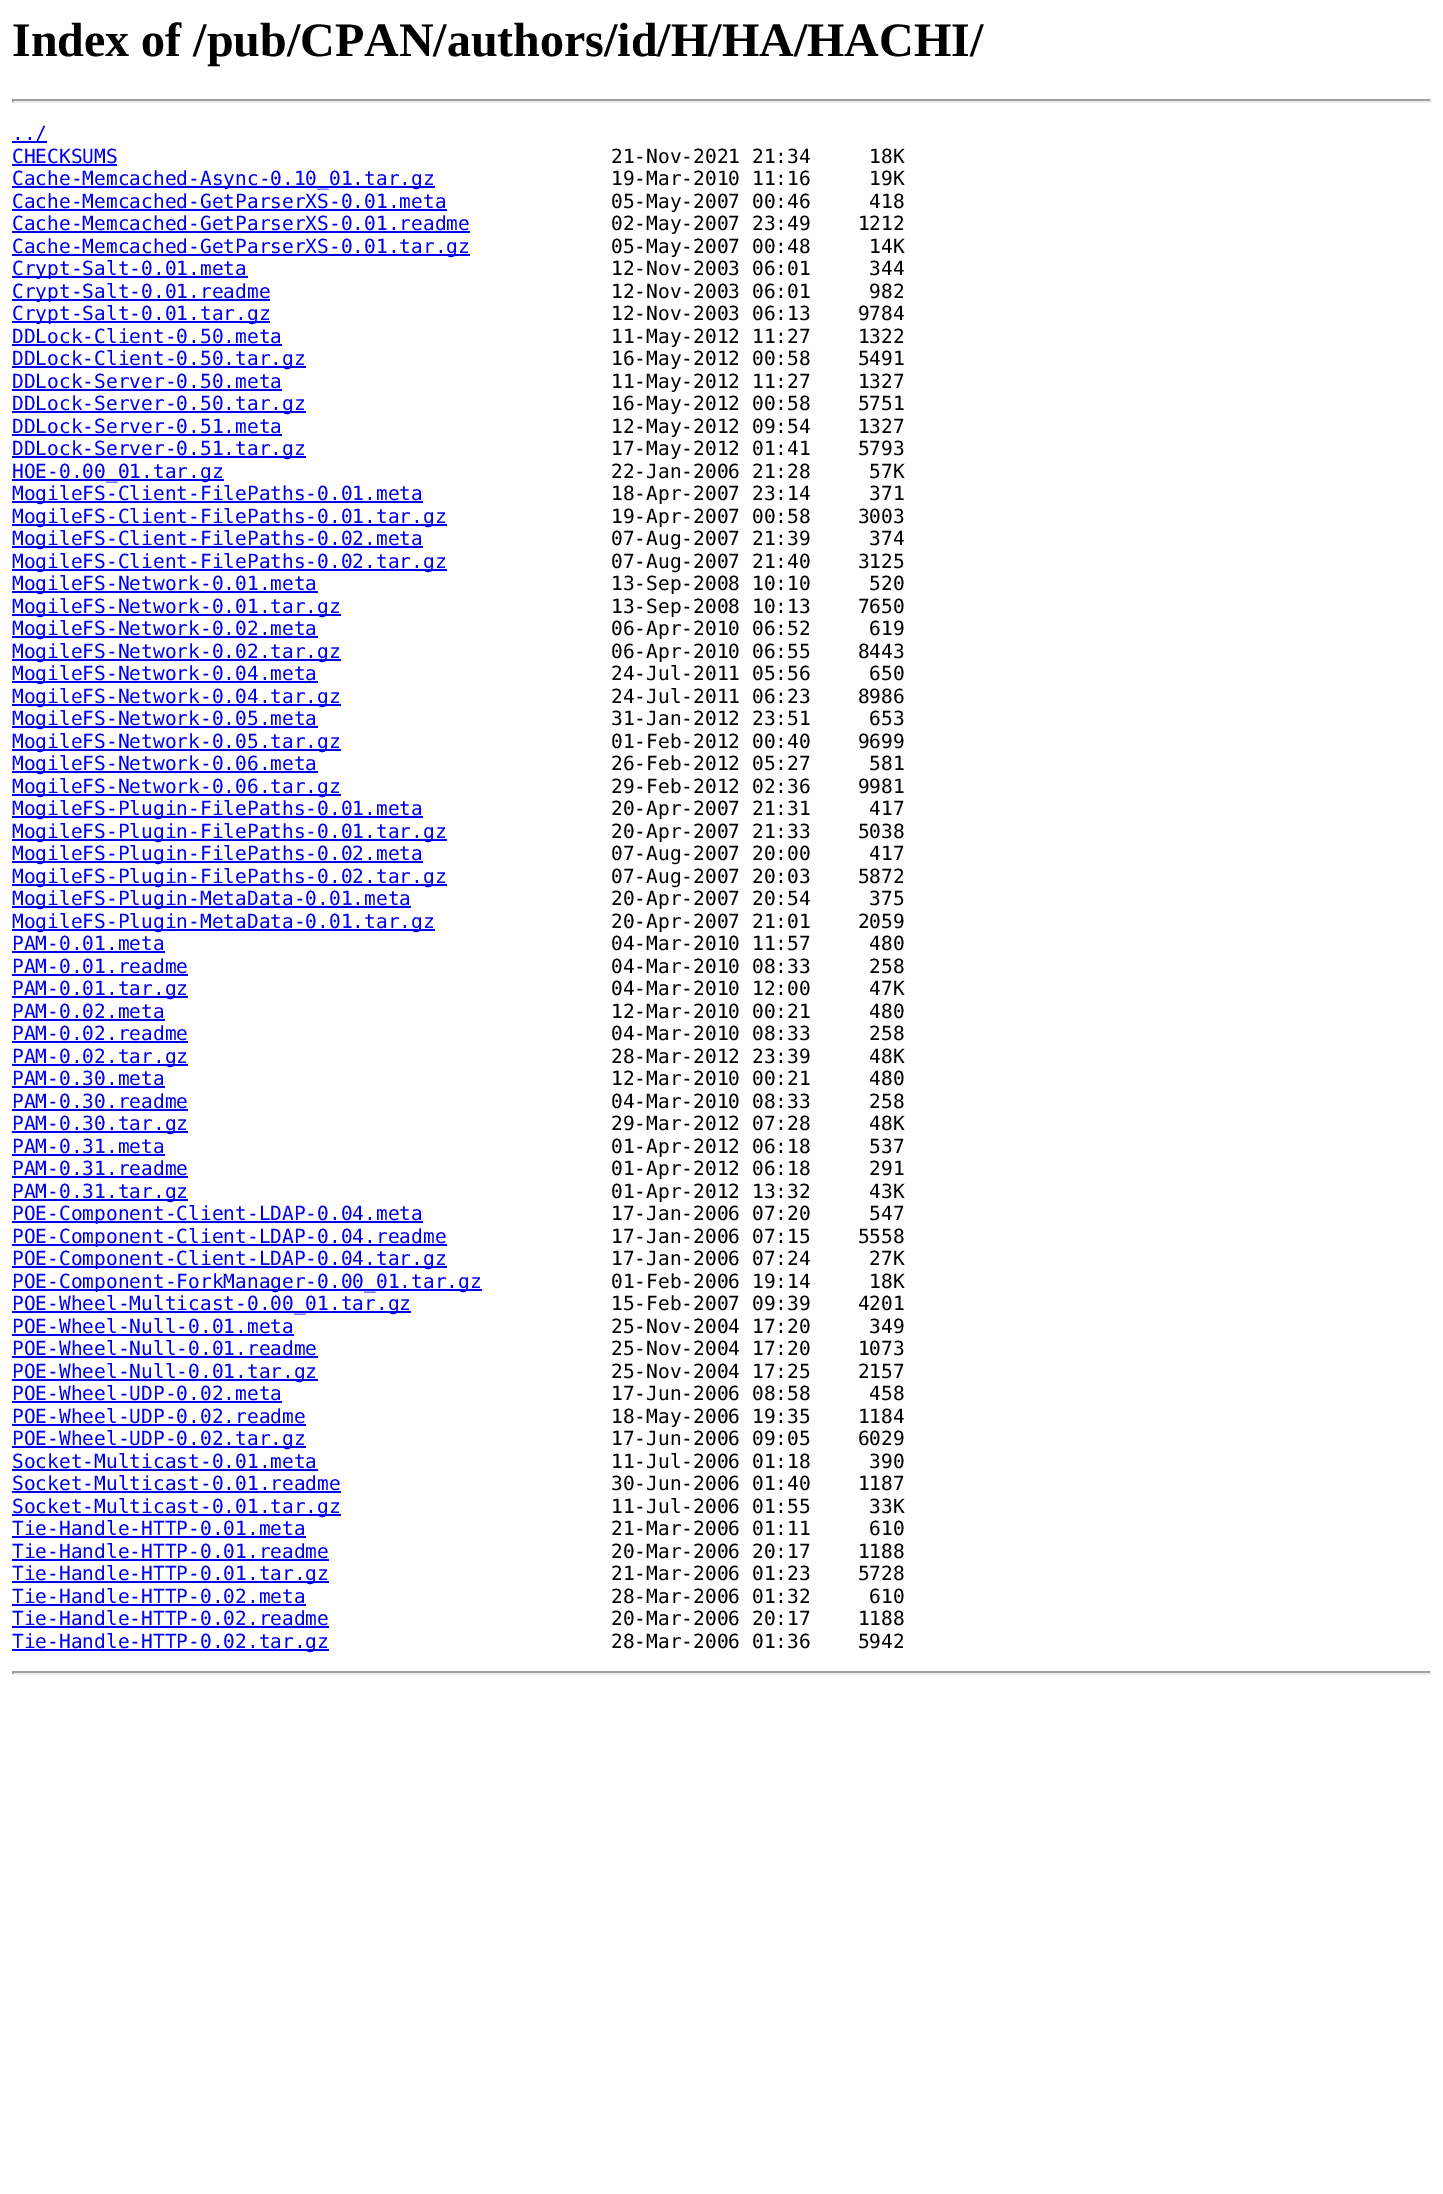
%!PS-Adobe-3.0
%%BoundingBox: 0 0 1443 2194
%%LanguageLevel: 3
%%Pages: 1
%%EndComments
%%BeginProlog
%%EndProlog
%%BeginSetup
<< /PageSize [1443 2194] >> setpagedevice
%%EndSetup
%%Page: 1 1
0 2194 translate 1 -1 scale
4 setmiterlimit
1 setgray
0 0 1443 2194 rectfill
0.624 setgray
12 99 1419 2 rectfill
0.933 setgray
1430 99 2 3 rectfill
12 101 1419 2 rectfill
0.624 setgray
12 99 2 3 rectfill
0 0 0.933 setrgbcolor
12 141 35 2 rectfill
12 164 105 2 rectfill
12 186 423 2 rectfill
12 209 435 2 rectfill
12 231 458 2 rectfill
12 254 458 2 rectfill
12 276 236 2 rectfill
12 299 258 2 rectfill
12 321 258 2 rectfill
12 344 270 2 rectfill
12 366 294 2 rectfill
12 389 270 2 rectfill
12 411 294 2 rectfill
12 434 270 2 rectfill
12 456 294 2 rectfill
12 479 212 2 rectfill
12 501 411 2 rectfill
12 524 435 2 rectfill
12 546 411 2 rectfill
12 569 435 2 rectfill
12 591 306 2 rectfill
12 614 329 2 rectfill
12 636 306 2 rectfill
12 659 329 2 rectfill
12 681 306 2 rectfill
12 704 329 2 rectfill
12 726 306 2 rectfill
12 749 329 2 rectfill
12 771 306 2 rectfill
12 794 329 2 rectfill
12 816 411 2 rectfill
12 839 435 2 rectfill
12 861 411 2 rectfill
12 884 435 2 rectfill
12 906 399 2 rectfill
12 929 423 2 rectfill
12 951 153 2 rectfill
12 974 176 2 rectfill
12 996 176 2 rectfill
12 1019 153 2 rectfill
12 1041 176 2 rectfill
12 1064 176 2 rectfill
12 1086 153 2 rectfill
12 1109 176 2 rectfill
12 1131 176 2 rectfill
12 1154 153 2 rectfill
12 1176 176 2 rectfill
12 1199 176 2 rectfill
12 1221 411 2 rectfill
12 1244 435 2 rectfill
12 1266 435 2 rectfill
12 1289 470 2 rectfill
12 1311 399 2 rectfill
12 1334 282 2 rectfill
12 1356 306 2 rectfill
12 1379 306 2 rectfill
12 1401 270 2 rectfill
12 1424 294 2 rectfill
12 1446 294 2 rectfill
12 1469 306 2 rectfill
12 1491 329 2 rectfill
12 1514 329 2 rectfill
12 1536 294 2 rectfill
12 1559 317 2 rectfill
12 1581 317 2 rectfill
12 1604 294 2 rectfill
12 1626 317 2 rectfill
12 1649 317 2 rectfill
0.624 setgray
12 1671 1419 2 rectfill
0.933 setgray
1430 1671 2 3 rectfill
12 1673 1419 2 rectfill
0.624 setgray
12 1671 2 3 rectfill
/LiberationSerif-Bold [48 0 0 -48 0 0] selectfont
0 setgray
12 56 moveto (Index of /pub/CPAN/authors/id/H/HA/HACHI/) show
/DejaVuSansMono-Regular [19.5 0 0 -19.5 0 0] selectfont
0 0 0.933 setrgbcolor
12 140 moveto (../) show
12 163 moveto (CHECKSUMS) show
0 setgray
611 163 moveto (21-Nov-2021 21:34     18K) show
0 0 0.933 setrgbcolor
12 185 moveto (Cache-Memcached-Async-0.10_01.tar.gz) show
0 setgray
611 185 moveto (19-Mar-2010 11:16     19K) show
0 0 0.933 setrgbcolor
12 208 moveto (Cache-Memcached-GetParserXS-0.01.meta) show
0 setgray
611 208 moveto (05-May-2007 00:46     418) show
0 0 0.933 setrgbcolor
12 230 moveto (Cache-Memcached-GetParserXS-0.01.readme) show
0 setgray
611 230 moveto (02-May-2007 23:49    1212) show
0 0 0.933 setrgbcolor
12 253 moveto (Cache-Memcached-GetParserXS-0.01.tar.gz) show
0 setgray
611 253 moveto (05-May-2007 00:48     14K) show
0 0 0.933 setrgbcolor
12 275 moveto (Crypt-Salt-0.01.meta) show
0 setgray
611 275 moveto (12-Nov-2003 06:01     344) show
0 0 0.933 setrgbcolor
12 298 moveto (Crypt-Salt-0.01.readme) show
0 setgray
611 298 moveto (12-Nov-2003 06:01     982) show
0 0 0.933 setrgbcolor
12 320 moveto (Crypt-Salt-0.01.tar.gz) show
0 setgray
611 320 moveto (12-Nov-2003 06:13    9784) show
0 0 0.933 setrgbcolor
12 343 moveto (DDLock-Client-0.50.meta) show
0 setgray
611 343 moveto (11-May-2012 11:27    1322) show
0 0 0.933 setrgbcolor
12 365 moveto (DDLock-Client-0.50.tar.gz) show
0 setgray
611 365 moveto (16-May-2012 00:58    5491) show
0 0 0.933 setrgbcolor
12 388 moveto (DDLock-Server-0.50.meta) show
0 setgray
611 388 moveto (11-May-2012 11:27    1327) show
0 0 0.933 setrgbcolor
12 410 moveto (DDLock-Server-0.50.tar.gz) show
0 setgray
611 410 moveto (16-May-2012 00:58    5751) show
0 0 0.933 setrgbcolor
12 433 moveto (DDLock-Server-0.51.meta) show
0 setgray
611 433 moveto (12-May-2012 09:54    1327) show
0 0 0.933 setrgbcolor
12 455 moveto (DDLock-Server-0.51.tar.gz) show
0 setgray
611 455 moveto (17-May-2012 01:41    5793) show
0 0 0.933 setrgbcolor
12 478 moveto (HOE-0.00_01.tar.gz) show
0 setgray
611 478 moveto (22-Jan-2006 21:28     57K) show
0 0 0.933 setrgbcolor
12 500 moveto (MogileFS-Client-FilePaths-0.01.meta) show
0 setgray
611 500 moveto (18-Apr-2007 23:14     371) show
0 0 0.933 setrgbcolor
12 523 moveto (MogileFS-Client-FilePaths-0.01.tar.gz) show
0 setgray
611 523 moveto (19-Apr-2007 00:58    3003) show
0 0 0.933 setrgbcolor
12 545 moveto (MogileFS-Client-FilePaths-0.02.meta) show
0 setgray
611 545 moveto (07-Aug-2007 21:39     374) show
0 0 0.933 setrgbcolor
12 568 moveto (MogileFS-Client-FilePaths-0.02.tar.gz) show
0 setgray
611 568 moveto (07-Aug-2007 21:40    3125) show
0 0 0.933 setrgbcolor
12 590 moveto (MogileFS-Network-0.01.meta) show
0 setgray
611 590 moveto (13-Sep-2008 10:10     520) show
0 0 0.933 setrgbcolor
12 613 moveto (MogileFS-Network-0.01.tar.gz) show
0 setgray
611 613 moveto (13-Sep-2008 10:13    7650) show
0 0 0.933 setrgbcolor
12 635 moveto (MogileFS-Network-0.02.meta) show
0 setgray
611 635 moveto (06-Apr-2010 06:52     619) show
0 0 0.933 setrgbcolor
12 658 moveto (MogileFS-Network-0.02.tar.gz) show
0 setgray
611 658 moveto (06-Apr-2010 06:55    8443) show
0 0 0.933 setrgbcolor
12 680 moveto (MogileFS-Network-0.04.meta) show
0 setgray
611 680 moveto (24-Jul-2011 05:56     650) show
0 0 0.933 setrgbcolor
12 703 moveto (MogileFS-Network-0.04.tar.gz) show
0 setgray
611 703 moveto (24-Jul-2011 06:23    8986) show
0 0 0.933 setrgbcolor
12 725 moveto (MogileFS-Network-0.05.meta) show
0 setgray
611 725 moveto (31-Jan-2012 23:51     653) show
0 0 0.933 setrgbcolor
12 748 moveto (MogileFS-Network-0.05.tar.gz) show
0 setgray
611 748 moveto (01-Feb-2012 00:40    9699) show
0 0 0.933 setrgbcolor
12 770 moveto (MogileFS-Network-0.06.meta) show
0 setgray
611 770 moveto (26-Feb-2012 05:27     581) show
0 0 0.933 setrgbcolor
12 793 moveto (MogileFS-Network-0.06.tar.gz) show
0 setgray
611 793 moveto (29-Feb-2012 02:36    9981) show
0 0 0.933 setrgbcolor
12 815 moveto (MogileFS-Plugin-FilePaths-0.01.meta) show
0 setgray
611 815 moveto (20-Apr-2007 21:31     417) show
0 0 0.933 setrgbcolor
12 838 moveto (MogileFS-Plugin-FilePaths-0.01.tar.gz) show
0 setgray
611 838 moveto (20-Apr-2007 21:33    5038) show
0 0 0.933 setrgbcolor
12 860 moveto (MogileFS-Plugin-FilePaths-0.02.meta) show
0 setgray
611 860 moveto (07-Aug-2007 20:00     417) show
0 0 0.933 setrgbcolor
12 883 moveto (MogileFS-Plugin-FilePaths-0.02.tar.gz) show
0 setgray
611 883 moveto (07-Aug-2007 20:03    5872) show
0 0 0.933 setrgbcolor
12 905 moveto (MogileFS-Plugin-MetaData-0.01.meta) show
0 setgray
611 905 moveto (20-Apr-2007 20:54     375) show
0 0 0.933 setrgbcolor
12 928 moveto (MogileFS-Plugin-MetaData-0.01.tar.gz) show
0 setgray
611 928 moveto (20-Apr-2007 21:01    2059) show
0 0 0.933 setrgbcolor
12 950 moveto (PAM-0.01.meta) show
0 setgray
611 950 moveto (04-Mar-2010 11:57     480) show
0 0 0.933 setrgbcolor
12 973 moveto (PAM-0.01.readme) show
0 setgray
611 973 moveto (04-Mar-2010 08:33     258) show
0 0 0.933 setrgbcolor
12 995 moveto (PAM-0.01.tar.gz) show
0 setgray
611 995 moveto (04-Mar-2010 12:00     47K) show
0 0 0.933 setrgbcolor
12 1018 moveto (PAM-0.02.meta) show
0 setgray
611 1018 moveto (12-Mar-2010 00:21     480) show
0 0 0.933 setrgbcolor
12 1040 moveto (PAM-0.02.readme) show
0 setgray
611 1040 moveto (04-Mar-2010 08:33     258) show
0 0 0.933 setrgbcolor
12 1063 moveto (PAM-0.02.tar.gz) show
0 setgray
611 1063 moveto (28-Mar-2012 23:39     48K) show
0 0 0.933 setrgbcolor
12 1085 moveto (PAM-0.30.meta) show
0 setgray
611 1085 moveto (12-Mar-2010 00:21     480) show
0 0 0.933 setrgbcolor
12 1108 moveto (PAM-0.30.readme) show
0 setgray
611 1108 moveto (04-Mar-2010 08:33     258) show
0 0 0.933 setrgbcolor
12 1130 moveto (PAM-0.30.tar.gz) show
0 setgray
611 1130 moveto (29-Mar-2012 07:28     48K) show
0 0 0.933 setrgbcolor
12 1153 moveto (PAM-0.31.meta) show
0 setgray
611 1153 moveto (01-Apr-2012 06:18     537) show
0 0 0.933 setrgbcolor
12 1175 moveto (PAM-0.31.readme) show
0 setgray
611 1175 moveto (01-Apr-2012 06:18     291) show
0 0 0.933 setrgbcolor
12 1198 moveto (PAM-0.31.tar.gz) show
0 setgray
611 1198 moveto (01-Apr-2012 13:32     43K) show
0 0 0.933 setrgbcolor
12 1220 moveto (POE-Component-Client-LDAP-0.04.meta) show
0 setgray
611 1220 moveto (17-Jan-2006 07:20     547) show
0 0 0.933 setrgbcolor
12 1243 moveto (POE-Component-Client-LDAP-0.04.readme) show
0 setgray
611 1243 moveto (17-Jan-2006 07:15    5558) show
0 0 0.933 setrgbcolor
12 1265 moveto (POE-Component-Client-LDAP-0.04.tar.gz) show
0 setgray
611 1265 moveto (17-Jan-2006 07:24     27K) show
0 0 0.933 setrgbcolor
12 1288 moveto (POE-Component-ForkManager-0.00_01.tar.gz) show
0 setgray
611 1288 moveto (01-Feb-2006 19:14     18K) show
0 0 0.933 setrgbcolor
12 1310 moveto (POE-Wheel-Multicast-0.00_01.tar.gz) show
0 setgray
611 1310 moveto (15-Feb-2007 09:39    4201) show
0 0 0.933 setrgbcolor
12 1333 moveto (POE-Wheel-Null-0.01.meta) show
0 setgray
611 1333 moveto (25-Nov-2004 17:20     349) show
0 0 0.933 setrgbcolor
12 1355 moveto (POE-Wheel-Null-0.01.readme) show
0 setgray
611 1355 moveto (25-Nov-2004 17:20    1073) show
0 0 0.933 setrgbcolor
12 1378 moveto (POE-Wheel-Null-0.01.tar.gz) show
0 setgray
611 1378 moveto (25-Nov-2004 17:25    2157) show
0 0 0.933 setrgbcolor
12 1400 moveto (POE-Wheel-UDP-0.02.meta) show
0 setgray
611 1400 moveto (17-Jun-2006 08:58     458) show
0 0 0.933 setrgbcolor
12 1423 moveto (POE-Wheel-UDP-0.02.readme) show
0 setgray
611 1423 moveto (18-May-2006 19:35    1184) show
0 0 0.933 setrgbcolor
12 1445 moveto (POE-Wheel-UDP-0.02.tar.gz) show
0 setgray
611 1445 moveto (17-Jun-2006 09:05    6029) show
0 0 0.933 setrgbcolor
12 1468 moveto (Socket-Multicast-0.01.meta) show
0 setgray
611 1468 moveto (11-Jul-2006 01:18     390) show
0 0 0.933 setrgbcolor
12 1490 moveto (Socket-Multicast-0.01.readme) show
0 setgray
611 1490 moveto (30-Jun-2006 01:40    1187) show
0 0 0.933 setrgbcolor
12 1513 moveto (Socket-Multicast-0.01.tar.gz) show
0 setgray
611 1513 moveto (11-Jul-2006 01:55     33K) show
0 0 0.933 setrgbcolor
12 1535 moveto (Tie-Handle-HTTP-0.01.meta) show
0 setgray
611 1535 moveto (21-Mar-2006 01:11     610) show
0 0 0.933 setrgbcolor
12 1558 moveto (Tie-Handle-HTTP-0.01.readme) show
0 setgray
611 1558 moveto (20-Mar-2006 20:17    1188) show
0 0 0.933 setrgbcolor
12 1580 moveto (Tie-Handle-HTTP-0.01.tar.gz) show
0 setgray
611 1580 moveto (21-Mar-2006 01:23    5728) show
0 0 0.933 setrgbcolor
12 1603 moveto (Tie-Handle-HTTP-0.02.meta) show
0 setgray
611 1603 moveto (28-Mar-2006 01:32     610) show
0 0 0.933 setrgbcolor
12 1625 moveto (Tie-Handle-HTTP-0.02.readme) show
0 setgray
611 1625 moveto (20-Mar-2006 20:17    1188) show
0 0 0.933 setrgbcolor
12 1648 moveto (Tie-Handle-HTTP-0.02.tar.gz) show
0 setgray
611 1648 moveto (28-Mar-2006 01:36    5942) show
showpage
%%EOF
